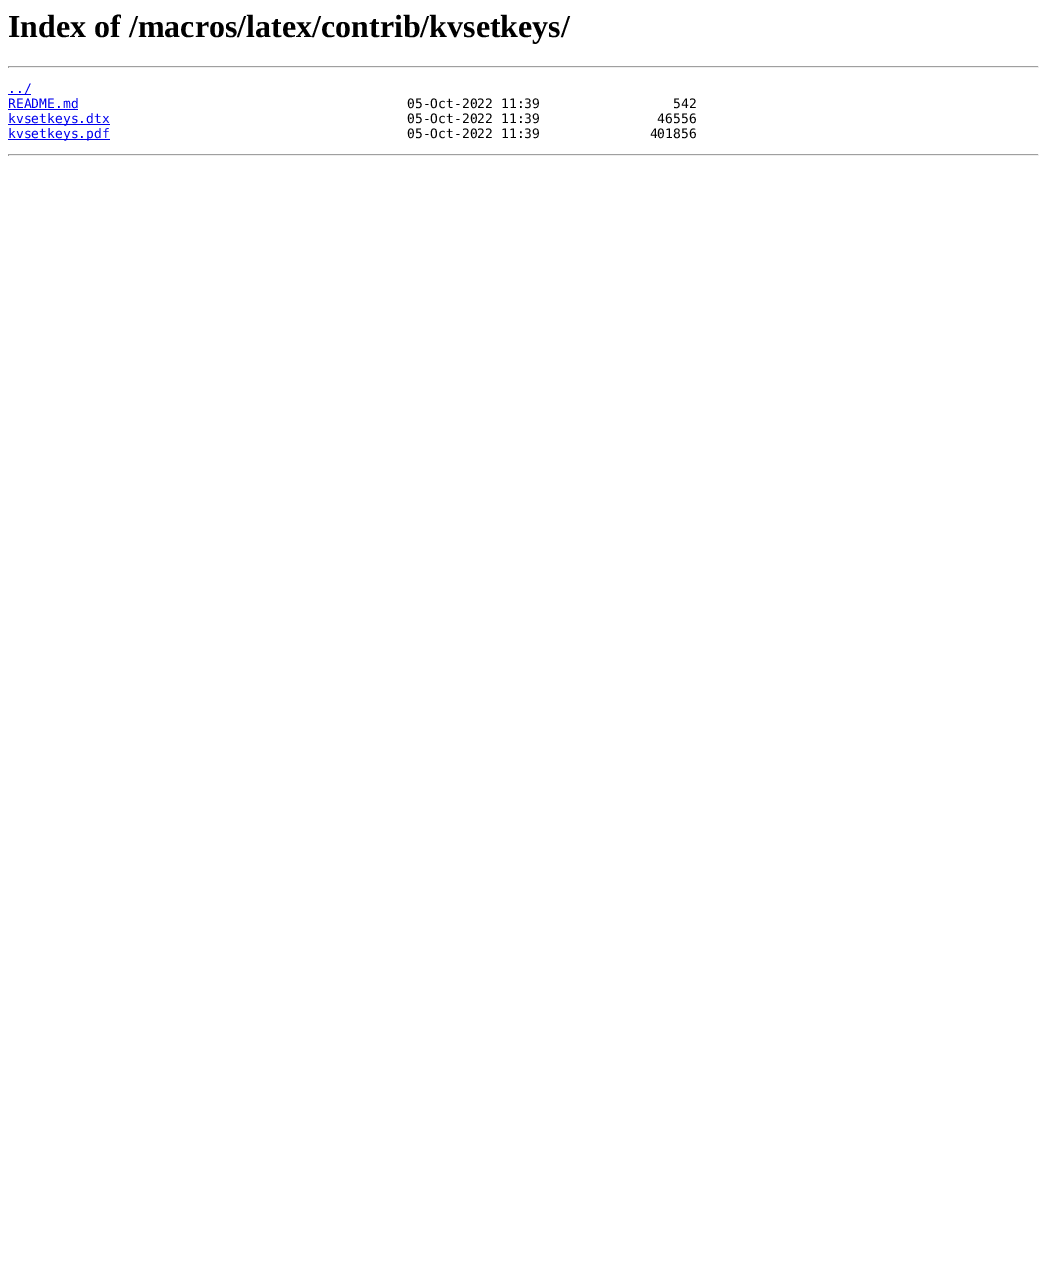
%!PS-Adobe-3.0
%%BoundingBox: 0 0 1047 1277
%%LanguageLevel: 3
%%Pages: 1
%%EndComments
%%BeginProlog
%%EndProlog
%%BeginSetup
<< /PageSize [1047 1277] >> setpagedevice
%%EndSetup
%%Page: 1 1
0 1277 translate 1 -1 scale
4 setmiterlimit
1 setgray
0 0 1047 1277 rectfill
0.624 setgray
8 66 1031 1 rectfill
0.933 setgray
1038 66 1 2 rectfill
8 67 1031 1 rectfill
0.624 setgray
8 66 1 2 rectfill
0 0 0.933 setrgbcolor
8 94 23 1 rectfill
8 109 70 1 rectfill
8 124 102 1 rectfill
8 139 102 1 rectfill
0.624 setgray
8 154 1031 1 rectfill
0.933 setgray
1038 154 1 2 rectfill
8 155 1031 1 rectfill
0.624 setgray
8 154 1 2 rectfill
/LiberationSerif-Bold [32 0 0 -32 0 0] selectfont
0 setgray
8 37 moveto (Index of /macros/latex/contrib/kvsetkeys/) show
/DejaVuSansMono-Regular [13 0 0 -13 0 0] selectfont
0 0 0.933 setrgbcolor
8 93 moveto (../) show
8 108 moveto (README.md) show
0 setgray
407 108 moveto (05-Oct-2022 11:39                 542) show
0 0 0.933 setrgbcolor
8 123 moveto (kvsetkeys.dtx) show
0 setgray
407 123 moveto (05-Oct-2022 11:39               46556) show
0 0 0.933 setrgbcolor
8 138 moveto (kvsetkeys.pdf) show
0 setgray
407 138 moveto (05-Oct-2022 11:39              401856) show
showpage
%%EOF
